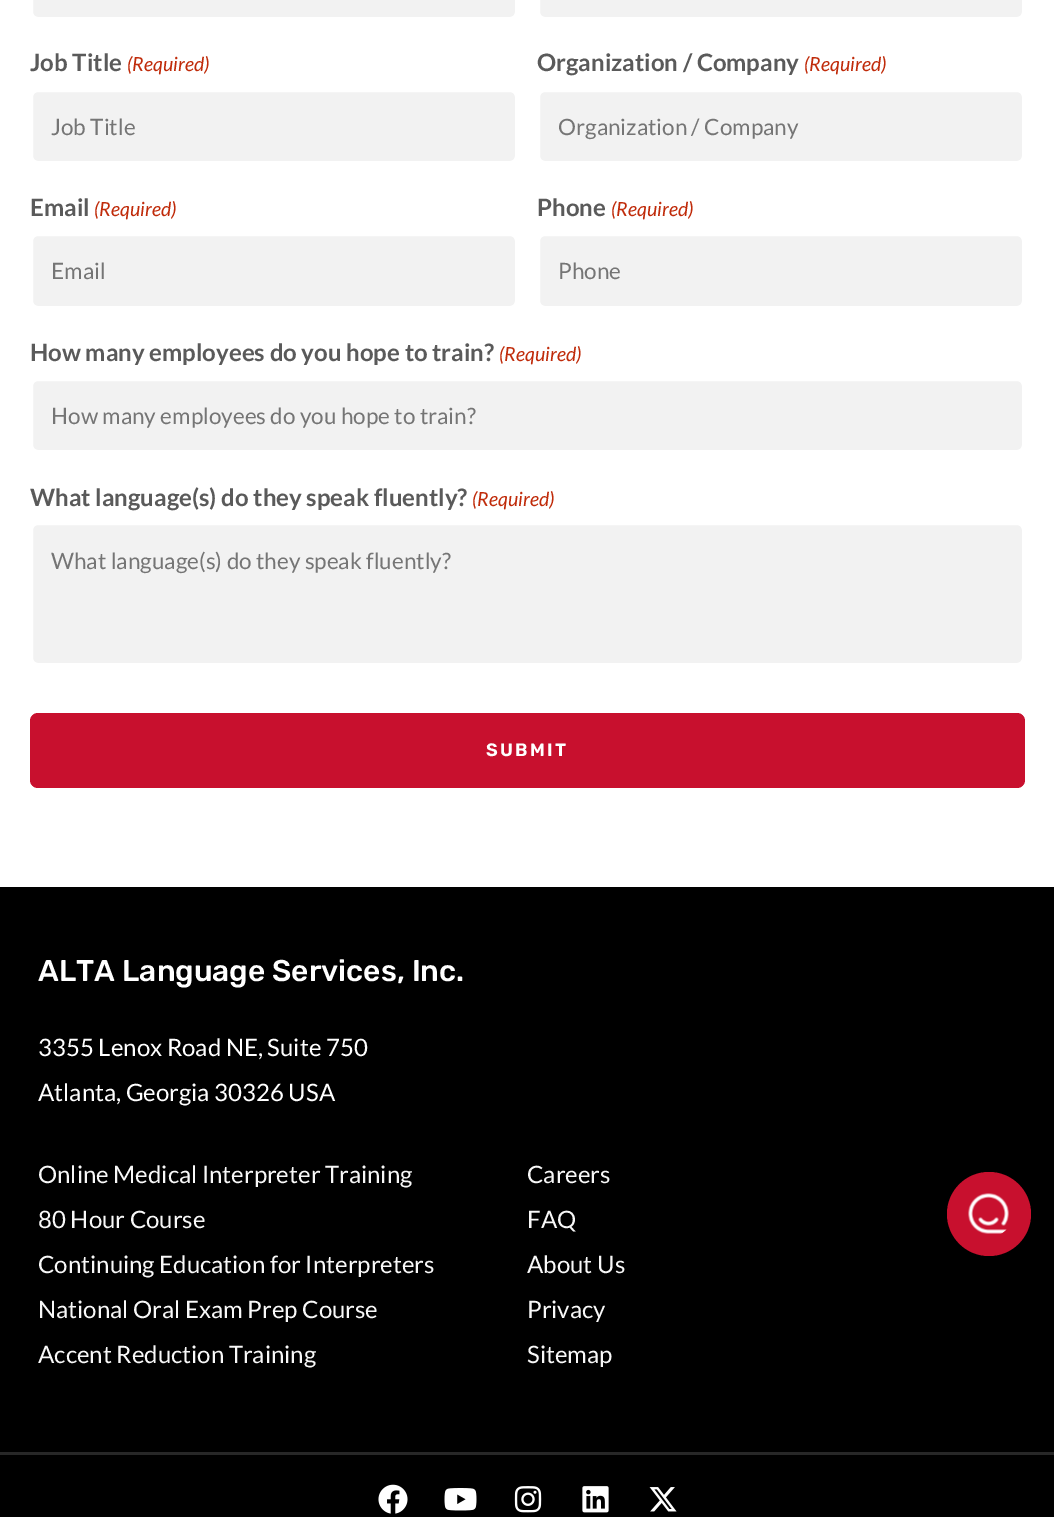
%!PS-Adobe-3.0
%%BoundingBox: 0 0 1054 1517
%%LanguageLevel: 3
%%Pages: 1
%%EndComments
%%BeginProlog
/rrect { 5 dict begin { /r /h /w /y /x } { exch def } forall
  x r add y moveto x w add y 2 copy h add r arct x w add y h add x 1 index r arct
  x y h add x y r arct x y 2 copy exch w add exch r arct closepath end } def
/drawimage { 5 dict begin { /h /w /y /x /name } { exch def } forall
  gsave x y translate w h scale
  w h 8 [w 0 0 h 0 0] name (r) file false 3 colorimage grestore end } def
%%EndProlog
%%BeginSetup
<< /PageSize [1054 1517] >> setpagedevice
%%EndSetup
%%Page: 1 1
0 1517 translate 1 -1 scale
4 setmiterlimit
1 setgray
0 0 1054 1517 rectfill
0.949 setgray
31.5 -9.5 485 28 6.5 rrect gsave fill grestore
1 setgray
3 setlinewidth
stroke
0.949 setgray
538.5 -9.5 485 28 6.5 rrect gsave fill grestore
1 setgray
stroke
0.949 setgray
31.5 90.5 485 72 6.5 rrect gsave fill grestore
1 setgray
stroke
0.949 setgray
538.5 90.5 485 72 6.5 rrect gsave fill grestore
1 setgray
stroke
0.949 setgray
31.5 234.5 485 73 6.5 rrect gsave fill grestore
1 setgray
stroke
0.949 setgray
538.5 234.5 485 73 6.5 rrect gsave fill grestore
1 setgray
stroke
0.949 setgray
31.5 379.5 992 72 6.5 rrect gsave fill grestore
1 setgray
stroke
0.949 setgray
31.5 523.5 992 141 6.5 rrect gsave fill grestore
1 setgray
stroke
0.784 0.063 0.18 setrgbcolor
30 713 995 75 8 rrect fill
0 setgray
0 887 1054 565 rectfill
0 1455 1054 62 rectfill
0.153 setgray
0 1452 1054 3 rectfill
(images/1.raw) 378 1484 30 30 drawimage
(images/2.raw) 444 1488 33 23 drawimage
(images/3.raw) 514 1486 28 27 drawimage
(images/4.raw) 582 1486 27 27 drawimage
(images/5.raw) 649 1487 28 25 drawimage
0.784 0.063 0.18 setrgbcolor
newpath 989 1214 42 0 360 arc closepath fill
(images/6.raw) 968 1193 41 41 drawimage
/Lato-Bold [24 0 0 -24 0 0] selectfont
0.353 setgray
30 71 moveto (Job Title) show
/Lato-Italic [19.5 0 0 -19.5 0 0] selectfont
0.753 0.169 0.039 setrgbcolor
127 71 moveto (\(Required\)) show
/Lato-Regular [22.5 0 0 -22.5 0 0] selectfont
0.459 setgray
51 135 moveto (Job Title) show
/Lato-Bold [24 0 0 -24 0 0] selectfont
0.353 setgray
537 71 moveto (Organization / Company) show
/Lato-Italic [19.5 0 0 -19.5 0 0] selectfont
0.753 0.169 0.039 setrgbcolor
804 71 moveto (\(Required\)) show
/Lato-Regular [22.5 0 0 -22.5 0 0] selectfont
0.459 setgray
558 135 moveto (Organization / Company) show
/Lato-Bold [24 0 0 -24 0 0] selectfont
0.353 setgray
30 216 moveto (Email) show
/Lato-Italic [19.5 0 0 -19.5 0 0] selectfont
0.753 0.169 0.039 setrgbcolor
94 216 moveto (\(Required\)) show
/Lato-Regular [22.5 0 0 -22.5 0 0] selectfont
0.459 setgray
51 279 moveto (Email) show
/Lato-Bold [24 0 0 -24 0 0] selectfont
0.353 setgray
537 216 moveto (Phone) show
/Lato-Italic [19.5 0 0 -19.5 0 0] selectfont
0.753 0.169 0.039 setrgbcolor
611 216 moveto (\(Required\)) show
/Lato-Regular [22.5 0 0 -22.5 0 0] selectfont
0.459 setgray
558 279 moveto (Phone) show
/Lato-Bold [24 0 0 -24 0 0] selectfont
0.353 setgray
30 361 moveto (How many employees do you hope to train?) show
/Lato-Italic [19.5 0 0 -19.5 0 0] selectfont
0.753 0.169 0.039 setrgbcolor
499 361 moveto (\(Required\)) show
/Lato-Regular [22.5 0 0 -22.5 0 0] selectfont
0.459 setgray
51 424 moveto (How many employees do you hope to train?) show
/Lato-Bold [24 0 0 -24 0 0] selectfont
0.353 setgray
30 506 moveto (What language\(s\) do they speak fluently?) show
/Lato-Italic [19.5 0 0 -19.5 0 0] selectfont
0.753 0.169 0.039 setrgbcolor
472 506 moveto (\(Required\)) show
/Lato-Regular [22.5 0 0 -22.5 0 0] selectfont
0.459 setgray
51 569 moveto (What language\(s\) do they speak fluently?) show
/Rubik-SemiBold [18 0 0 -18 0 0] selectfont
1 setgray
486 756 moveto 2.25 0 (SUBMIT) ashow
/Rubik-Medium [30 0 0 -30 0 0] selectfont
38 981 moveto (ALTA Language Services, Inc.) show
/Lato-Regular [24 0 0 -24 0 0] selectfont
38 1056 moveto (3355 Lenox Road NE, Suite 750) show
38 1101 moveto (Atlanta, Georgia 30326 USA) show
0.973 setgray
38 1183 moveto (Online Medical Interpreter Training) show
38 1228 moveto (80 Hour Course) show
38 1273 moveto (Continuing Education for Interpreters) show
38 1318 moveto (National Oral Exam Prep Course) show
38 1363 moveto (Accent Reduction Training) show
527 1183 moveto (Careers) show
527 1228 moveto (FAQ) show
527 1273 moveto (About Us) show
527 1318 moveto (Privacy) show
527 1363 moveto (Sitemap) show
showpage
%%EOF
